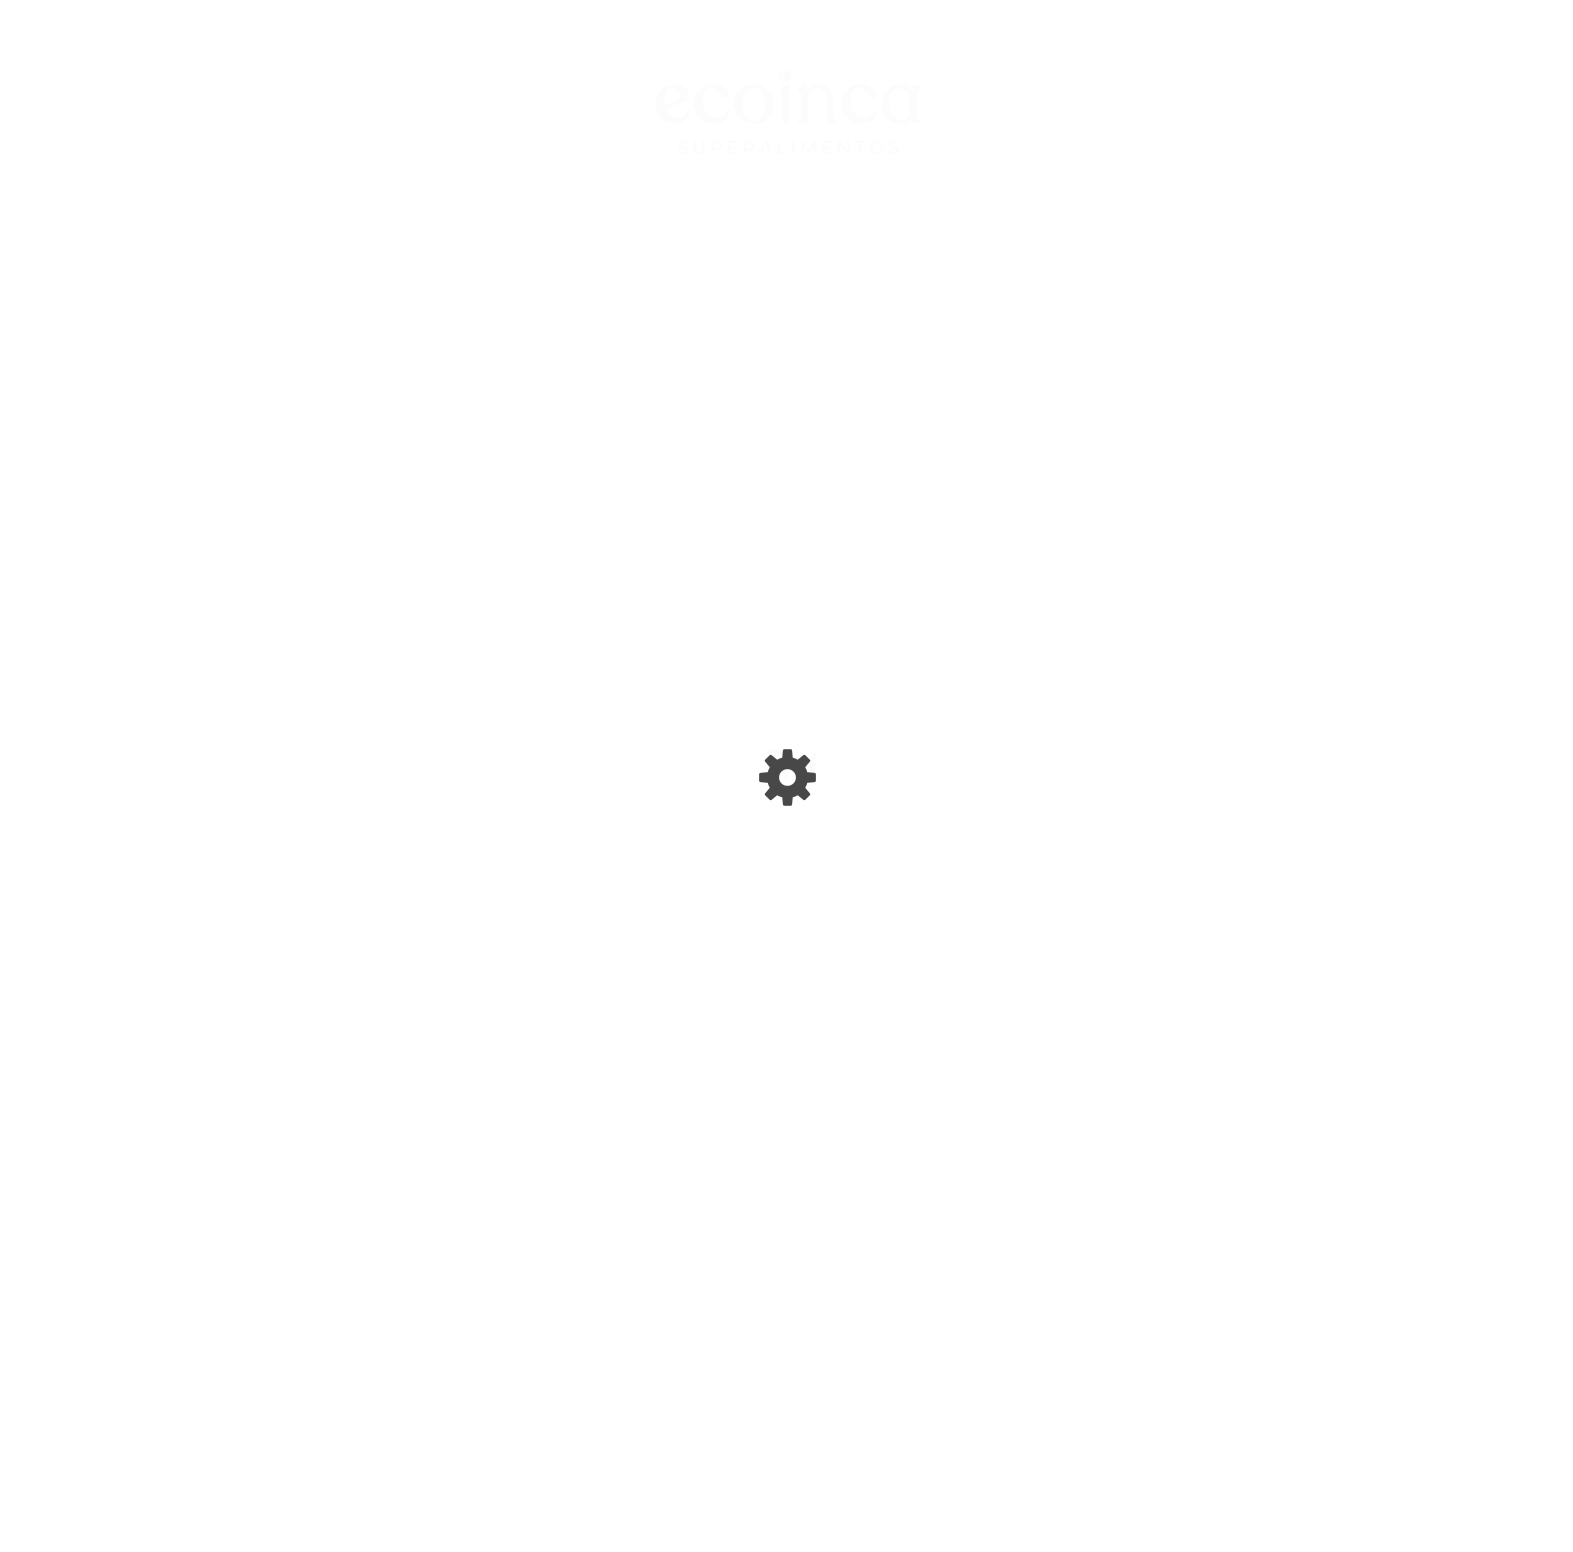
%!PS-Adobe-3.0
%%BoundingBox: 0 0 1573 1552
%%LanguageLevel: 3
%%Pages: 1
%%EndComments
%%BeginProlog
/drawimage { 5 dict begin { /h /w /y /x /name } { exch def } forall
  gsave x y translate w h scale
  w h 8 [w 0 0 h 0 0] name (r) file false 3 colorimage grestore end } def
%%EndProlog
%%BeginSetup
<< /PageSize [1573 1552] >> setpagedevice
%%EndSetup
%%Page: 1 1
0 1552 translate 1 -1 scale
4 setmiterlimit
1 setgray
0 0 1573 1552 rectfill
(images/1.raw) 655 69 267 86 drawimage
(images/2.raw) 759 749 57 57 drawimage
(images/3.raw) 0 1546 1573 6 drawimage
showpage
%%EOF
